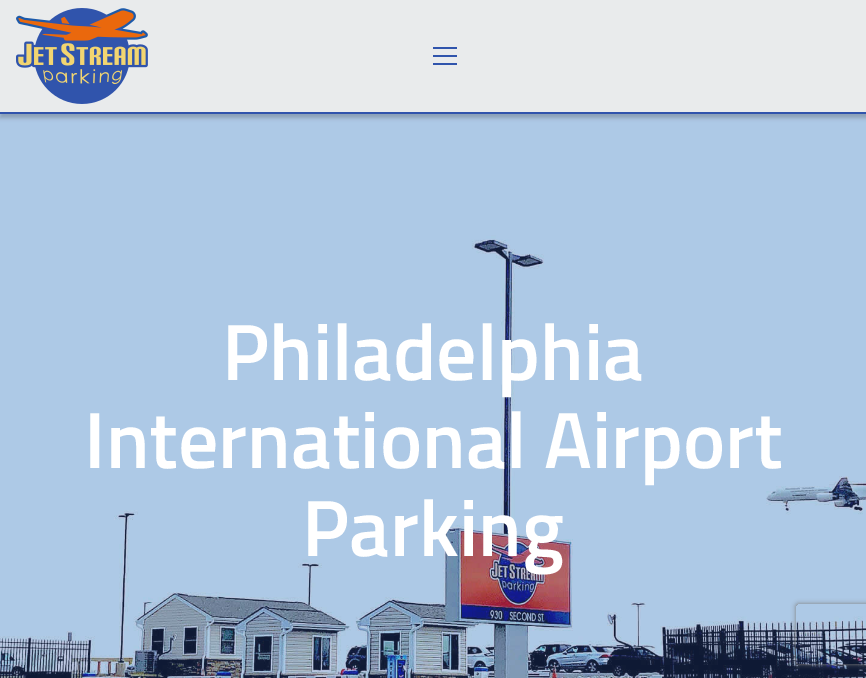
%!PS-Adobe-3.0
%%BoundingBox: 0 0 866 678
%%LanguageLevel: 3
%%Pages: 1
%%EndComments
%%BeginProlog
/setalpha { dup .setfillconstantalpha .setstrokeconstantalpha } def
/rrect { 5 dict begin { /r /h /w /y /x } { exch def } forall
  x r add y moveto x w add y 2 copy h add r arct x w add y h add x 1 index r arct
  x y h add x y r arct x y 2 copy exch w add exch r arct closepath end } def
/softshadow { 12 dict begin { /a /b /q /h /w /y /x } { exch def } forall gsave /was 0 def
  9 -2 -9 { dup b mul 4 div /e exch def 1 sub .425 mul 2.718 exch exp 1 add a .99 .min exch div /now exch def
    1 1 now sub 1 was sub div sub setalpha /was now def
    w h .min e 2 mul add 0 gt { x e sub y e sub w e 2 mul add h e 2 mul add
      q e add b .6 mul add w h .min 2 div e add .min 0 .max rrect fill } if } for grestore end } def
/drawimage { 5 dict begin { /h /w /y /x /name } { exch def } forall
  gsave x y translate w h scale
  w h 8 [w 0 0 h 0 0] name (r) file false 3 colorimage grestore end } def
%%EndProlog
%%BeginSetup
<< /PageSize [866 678] /PageUsesTransparency true >> setpagedevice
%%EndSetup
%%Page: 1 1
0 .pushpdf14devicefilter
0 678 translate 1 -1 scale
4 setmiterlimit
1 setgray
0 0 866 678 rectfill
(images/2.raw) 0 114 866 564 drawimage
0 setgray
0 0 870 118 0 2 0.2 softshadow
0.914 0.922 0.925 setrgbcolor
0 0 866 112 rectfill
0.188 0.329 0.675 setrgbcolor
0 112 866 2 rectfill
(images/1.raw) 16 8 132 96 drawimage
433 47 24 2 rectfill
433 55 24 2 rectfill
433 63 24 2 rectfill
gsave
newpath 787 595 moveto 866 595 lineto 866 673 lineto 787 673 lineto closepath 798 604 moveto 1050 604 lineto 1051 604 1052 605 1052 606 curveto 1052 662 lineto 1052 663 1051 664 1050 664 curveto 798 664 lineto 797 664 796 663 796 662 curveto 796 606 lineto 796 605 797 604 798 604 curveto closepath eoclip newpath
0.502 setgray
796 604 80 60 2 2.5 1 softshadow
grestore
/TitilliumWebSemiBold-SemiBold [80 0 0 -80 0 0] selectfont
1 setgray
222 380 moveto (Philadelphia) show
84 468 moveto (International Airport) show
302 556 moveto (Parking) show
.poppdf14devicefilter showpage
%%EOF
